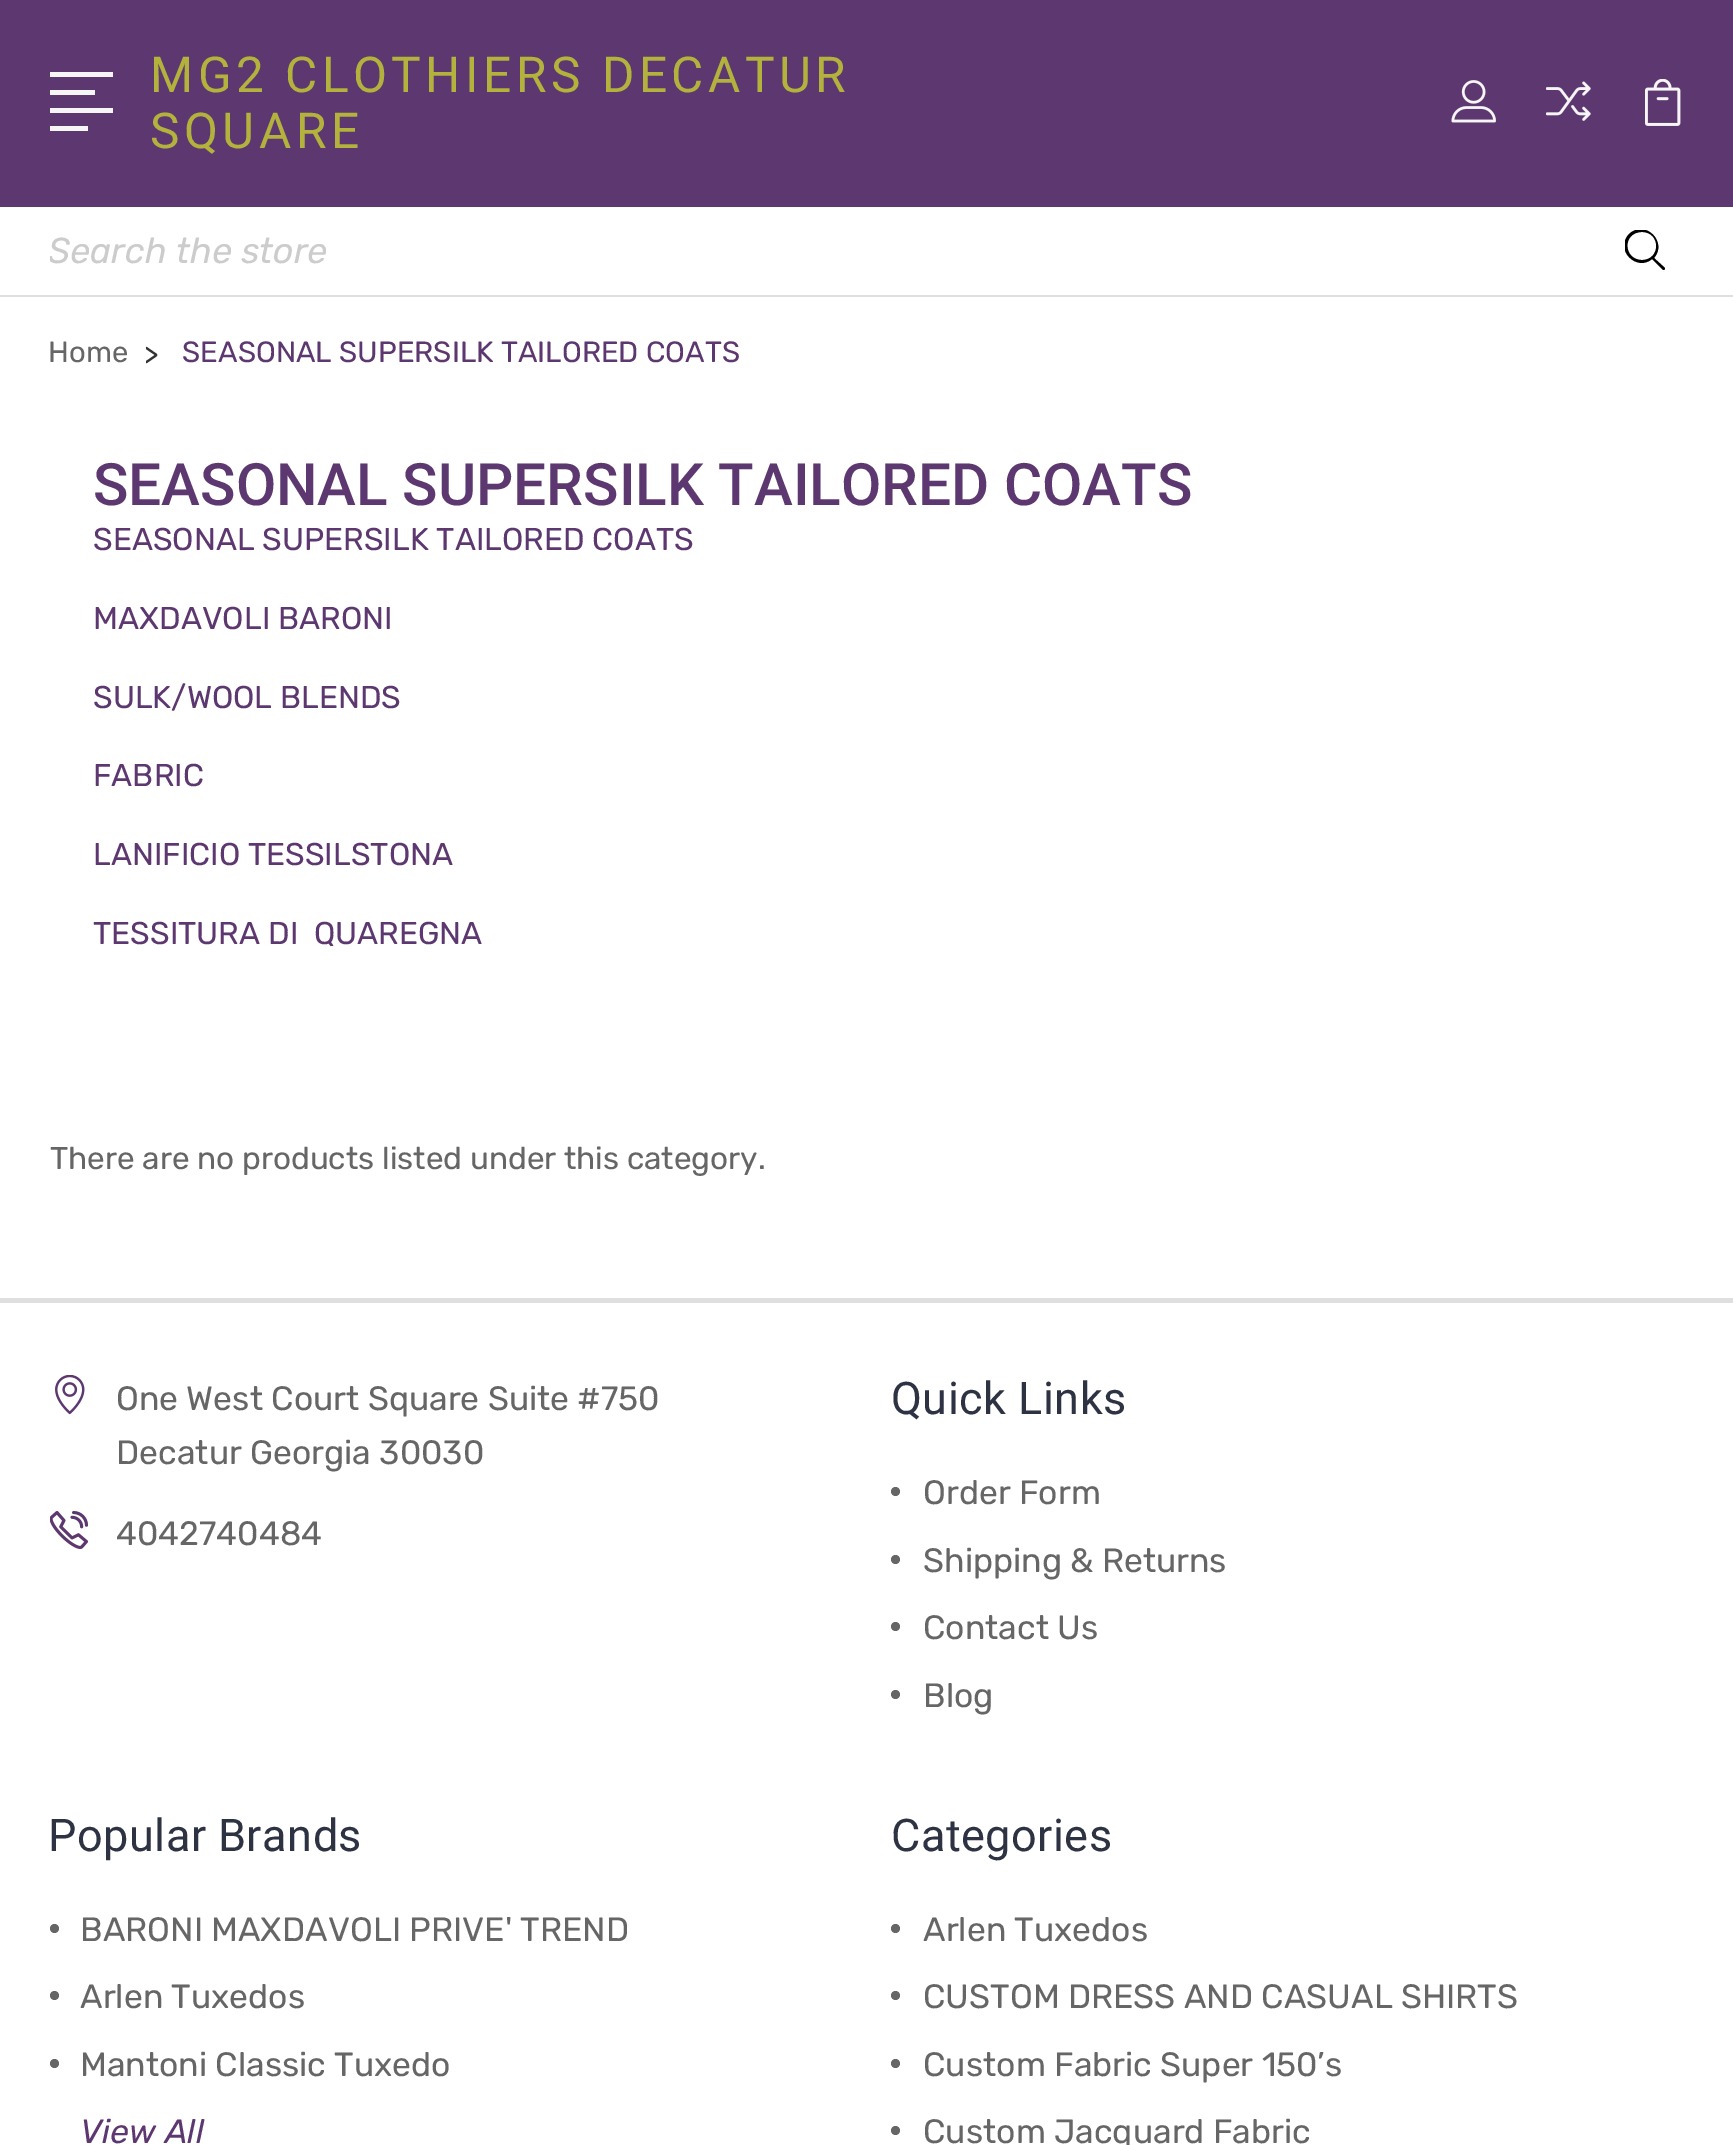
%!PS-Adobe-3.0
%%BoundingBox: 0 0 1733 2145
%%LanguageLevel: 3
%%Pages: 1
%%EndComments
%%BeginProlog
/drawimage { 5 dict begin { /h /w /y /x /name } { exch def } forall
  gsave x y translate w h scale
  w h 8 [w 0 0 h 0 0] name (r) file false 3 colorimage grestore end } def
%%EndProlog
%%BeginSetup
<< /PageSize [1733 2145] >> setpagedevice
%%EndSetup
%%Page: 1 1
0 2145 translate 1 -1 scale
4 setmiterlimit
1 setgray
0 0 1733 2145 rectfill
0.365 0.216 0.439 setrgbcolor
0 0 1733 207 rectfill
0.965 setgray
50 72 63 5 rectfill
50 90 45 5 rectfill
50 108 63 5 rectfill
50 126 38 5 rectfill
(images/1.raw) 1451 80 45 43 drawimage
(images/2.raw) 1546 81 45 40 drawimage
(images/3.raw) 1645 79 36 47 drawimage
0.875 setgray
0 295 1733 2 rectfill
gsave
1625 230 40 40 rectclip
0 setgray
newpath 1642 260 moveto 1623 260 1622 232 1642 232 curveto 1661 232 1661 260 1642 260 curveto closepath 1665 268 moveto 1654 258 lineto 1668 242 1645 219 1629 234 curveto 1614 250 1637 272 1652 259 curveto 1663 270 lineto 1664 270 1666 269 1665 268 curveto closepath fill
grestore
0 1298 1733 5 rectfill
(images/4.raw) 55 1375 30 40 drawimage
(images/5.raw) 50 1511 39 38 drawimage
0.4 setgray
newpath 895.5 1491.5 4.5 0 360 arc closepath fill
newpath 895.5 1559.5 4.5 0 360 arc closepath fill
newpath 895.5 1626.5 4.5 0 360 arc closepath fill
newpath 895.5 1694.5 4.5 0 360 arc closepath fill
newpath 54.5 1928.5 4.5 0 360 arc closepath fill
newpath 54.5 1995.5 4.5 0 360 arc closepath fill
newpath 54.5 2063.5 4.5 0 360 arc closepath fill
newpath 895.5 1928.5 4.5 0 360 arc closepath fill
newpath 895.5 1995.5 4.5 0 360 arc closepath fill
newpath 895.5 2063.5 4.5 0 360 arc closepath fill
newpath 895.5 2130.5 4.5 0 360 arc closepath fill
/Roboto-Regular [49.5 0 0 -49.5 0 0] selectfont
0.698 0.698 0.239 setrgbcolor
150 92 moveto 4.5 0 (MG2 CLOTHIERS DECATUR) ashow
150 148 moveto 4.5 0 (SQUARE) ashow
gsave
50 230 1570 42 rectclip
/Rubik-Italic [36 0 0 -36 0 0] selectfont
0.8 setgray
48 263 moveto (Search the store) show
grestore
/Rubik-Regular [29.25 0 0 -29.25 0 0] selectfont
0.4 setgray
48 362 moveto (Home) show
0.2 setgray
144 364 moveto (>) show
0.365 0.216 0.439 setrgbcolor
182 362 moveto (SEASONAL SUPERSILK TAILORED COATS) show
/Roboto-Medium [58.5 0 0 -58.5 0 0] selectfont
93 505 moveto (SEASONAL SUPERSILK TAILORED COATS) show
/Rubik-Regular [31.5 0 0 -31.5 0 0] selectfont
93 550 moveto (SEASONAL SUPERSILK TAILORED COATS) show
93 629 moveto (MAXDAVOLI BARONI) show
93 708 moveto (SULK/WOOL BLENDS) show
93 786 moveto (FABRIC) show
93 865 moveto (LANIFICIO TESSILSTONA) show
93 944 moveto (TESSITURA DI  QUAREGNA) show
0.4 setgray
50 1169 moveto (There are no products listed under this category.) show
/Rubik-Regular [33.75 0 0 -33.75 0 0] selectfont
116 1410 moveto (One West Court Square Suite #750) show
116 1464 moveto (Decatur Georgia 30030) show
116 1545 moveto (4042740484) show
/Roboto-Regular [45 0 0 -45 0 0] selectfont
0.18 0.2 0.267 setrgbcolor
891 1414 moveto 0.5 0 (Quick Links) ashow
/Rubik-Regular [33.75 0 0 -33.75 0 0] selectfont
0.4 setgray
923 1504 moveto (Order Form) show
923 1572 moveto (Shipping & Returns) show
923 1639 moveto (Contact Us) show
923 1707 moveto (Blog) show
/Roboto-Regular [45 0 0 -45 0 0] selectfont
0.18 0.2 0.267 setrgbcolor
48 1851 moveto 0.5 0 (Popular Brands) ashow
/Rubik-Regular [33.75 0 0 -33.75 0 0] selectfont
0.4 setgray
80 1941 moveto (BARONI MAXDAVOLI PRIVE' TREND) show
80 2008 moveto (Arlen Tuxedos) show
80 2076 moveto (Mantoni Classic Tuxedo) show
/Rubik-Italic [33.75 0 0 -33.75 0 0] selectfont
0.365 0.216 0.439 setrgbcolor
80 2143 moveto (View All) show
/Roboto-Regular [45 0 0 -45 0 0] selectfont
0.18 0.2 0.267 setrgbcolor
891 1851 moveto 0.5 0 (Categories) ashow
/Rubik-Regular [33.75 0 0 -33.75 0 0] selectfont
0.4 setgray
923 1941 moveto (Arlen Tuxedos) show
923 2008 moveto (CUSTOM DRESS AND CASUAL SHIRTS) show
923 2076 moveto (Custom Fabric Super 150’s) show
923 2143 moveto (Custom Jacquard Fabric) show
showpage
%%EOF
